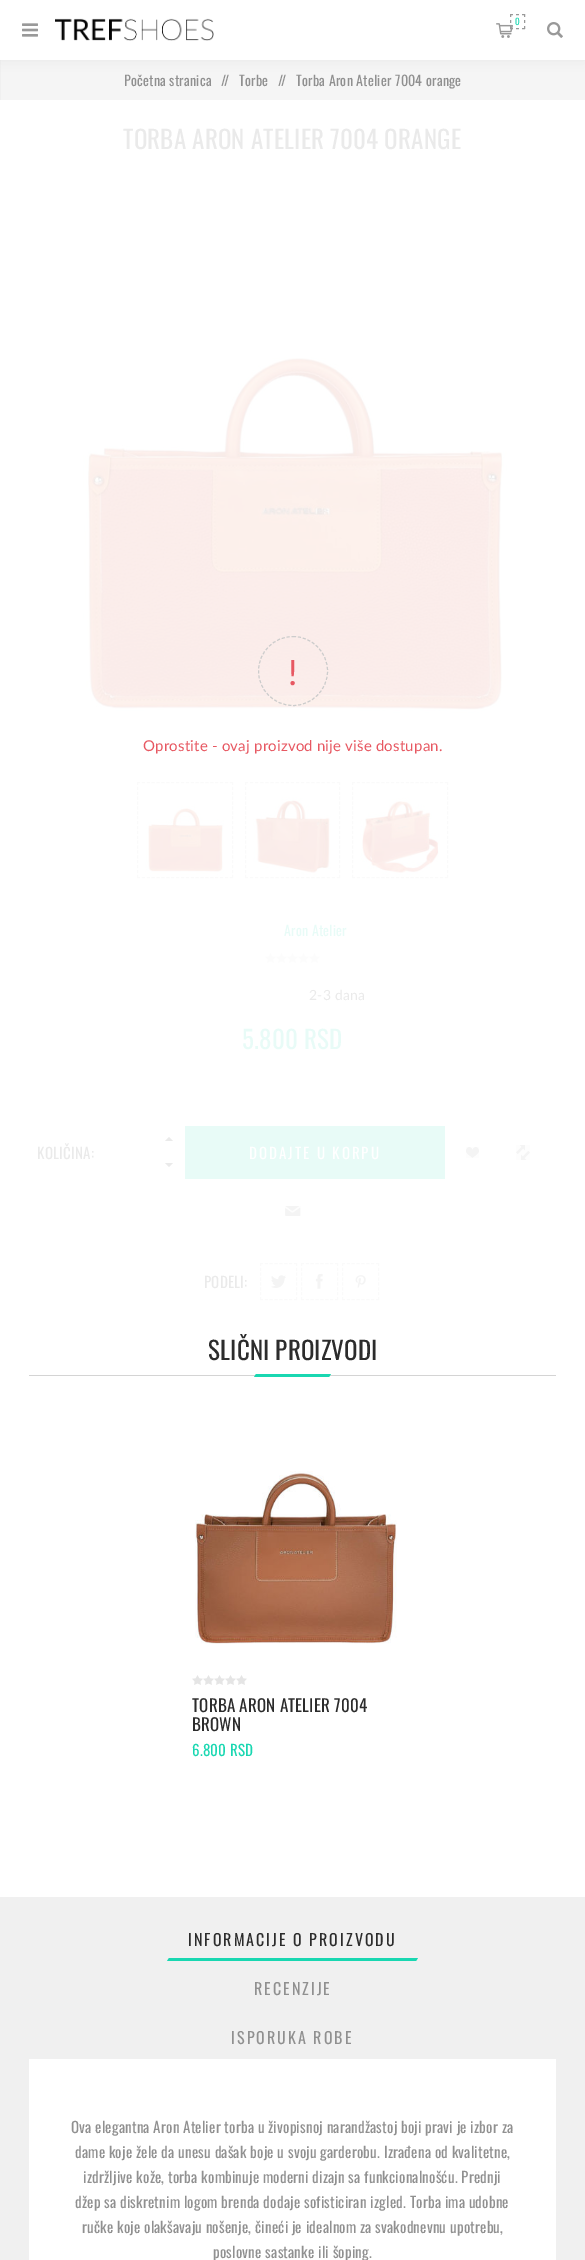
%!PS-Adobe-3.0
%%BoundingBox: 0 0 585 2260
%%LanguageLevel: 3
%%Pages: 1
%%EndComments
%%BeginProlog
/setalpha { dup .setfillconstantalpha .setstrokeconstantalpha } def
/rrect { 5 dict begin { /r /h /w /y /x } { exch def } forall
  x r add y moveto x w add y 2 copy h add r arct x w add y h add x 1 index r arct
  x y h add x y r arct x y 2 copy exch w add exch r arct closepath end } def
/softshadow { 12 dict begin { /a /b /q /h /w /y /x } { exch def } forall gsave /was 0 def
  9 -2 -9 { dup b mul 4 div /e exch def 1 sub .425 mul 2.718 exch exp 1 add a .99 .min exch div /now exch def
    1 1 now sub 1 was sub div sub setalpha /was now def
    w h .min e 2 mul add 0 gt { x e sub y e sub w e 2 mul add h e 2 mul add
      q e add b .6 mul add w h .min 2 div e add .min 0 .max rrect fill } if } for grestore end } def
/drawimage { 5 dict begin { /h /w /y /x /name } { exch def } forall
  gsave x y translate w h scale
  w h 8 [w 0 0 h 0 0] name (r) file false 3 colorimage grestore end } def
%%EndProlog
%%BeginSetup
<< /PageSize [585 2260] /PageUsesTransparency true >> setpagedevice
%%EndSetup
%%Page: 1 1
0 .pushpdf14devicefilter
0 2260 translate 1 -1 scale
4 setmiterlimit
0.941 setgray
0 0 585 2260 rectfill
0.961 setgray
1 60 584 40 rectfill
0 setgray
0 0 585 60 0 7 0.06 softshadow
1 setgray
0 0 585 60 rectfill
(images/1.raw) 22 23 16 14 drawimage
(images/2.raw) 55 18 159 23 drawimage
(images/3.raw) 496 23 17 15 drawimage
0.6 setgray
newpath 510 14.5 moveto 513 14.5 lineto 516 14.5 moveto 519 14.5 lineto 522 14.5 moveto 525 14.5 lineto 524.5 14 moveto 524.5 17 lineto 524.5 20 moveto 524.5 23 lineto 524.5 26 moveto 524.5 29 lineto 510 28.5 moveto 513 28.5 lineto 516 28.5 moveto 519 28.5 lineto 522 28.5 moveto 525 28.5 lineto 510.5 14 moveto 510.5 17 lineto 510.5 20 moveto 510.5 23 lineto 510.5 26 moveto 510.5 29 lineto stroke
(images/4.raw) 547 22 16 16 drawimage
1 setgray
0 100 585 1797 rectfill
(images/12.raw) 83 357 425 357 drawimage
0.8 setgray
[3 2] 0 setdash
newpath 293 636.5 moveto 312 636.5 327.5 652 327.5 671 curveto 327.5 690 312 705.5 293 705.5 curveto 274 705.5 258.5 690 258.5 671 curveto 258.5 652 274 636.5 293 636.5 curveto closepath stroke
0.988 setgray
265 953 55 10 rectfill
(images/5.raw) 265 953 55 10 drawimage
0.918 setgray
newpath 173 1141 moveto 165 1141 lineto 169 1137 lineto closepath 165 1163 moveto 173 1163 lineto 169 1167 lineto closepath fill
0.91 0.984 0.969 setrgbcolor
185 1126 260 53 rectfill
(images/6.raw) 466 1147 13 11 drawimage
(images/7.raw) 516 1145 14 15 drawimage
(images/8.raw) 285 1206 16 10 drawimage
0.98 setgray
[3 1.86] 0 setdash
newpath 260 1263.5 moveto 297 1263.5 lineto 296.5 1263 moveto 296.5 1300 lineto 260 1299.5 moveto 297 1299.5 lineto 260.5 1263 moveto 260.5 1300 lineto stroke
(images/9.raw) 271 1275 15 13 drawimage
newpath 301 1263.5 moveto 338 1263.5 lineto 337.5 1263 moveto 337.5 1300 lineto 301 1299.5 moveto 338 1299.5 lineto 301.5 1263 moveto 301.5 1300 lineto stroke
(images/10.raw) 315 1273 8 16 drawimage
newpath 342 1263.5 moveto 379 1263.5 lineto 378.5 1263 moveto 378.5 1300 lineto 342 1299.5 moveto 379 1299.5 lineto 342.5 1263 moveto 342.5 1300 lineto stroke
(images/11.raw) 355 1275 11 14 drawimage
[3 1.89] 0 setdash
newpath 137 782.5 moveto 233 782.5 lineto stroke
newpath 232.5 782 moveto 232.5 878 lineto stroke
newpath 137 877.5 moveto 233 877.5 lineto stroke
newpath 137.5 782 moveto 137.5 878 lineto stroke
(images/13.raw) 145 804 79 72 drawimage
[3 2.11] 0 setdash
newpath 245 782.5 moveto 340 782.5 lineto stroke
[3 1.89] 0 setdash
newpath 339.5 782 moveto 339.5 878 lineto stroke
[3 2.11] 0 setdash
newpath 245 877.5 moveto 340 877.5 lineto stroke
[3 1.89] 0 setdash
newpath 245.5 782 moveto 245.5 878 lineto stroke
(images/14.raw) 253 797 78 79 drawimage
newpath 352 782.5 moveto 448 782.5 lineto stroke
newpath 447.5 782 moveto 447.5 878 lineto stroke
newpath 352 877.5 moveto 448 877.5 lineto stroke
newpath 352.5 782 moveto 352.5 878 lineto stroke
(images/15.raw) 360 797 79 79 drawimage
0.831 setgray
29 1375 527 1 rectfill
0.098 0.843 0.694 setrgbcolor
newpath 256 1374 moveto 331 1374 lineto 329 1377 lineto 254 1377 lineto closepath fill
(images/16.raw) 195 1471 202 173 drawimage
0.898 setgray
192 1675 55 10 rectfill
(images/17.raw) 192 1675 55 10 drawimage
0.098 0.843 0.694 setrgbcolor
newpath 169 1958 moveto 418 1958 lineto 416 1961 lineto 167 1961 lineto closepath fill
1 setgray
29 2059 527 201 rectfill
/Oswald-Regular [9 0 0 -9 0 0] selectfont
0.098 0.843 0.694 setrgbcolor
515 25 moveto 0.2 0 (0) ashow
/Oswald-Regular [14 0 0 -14 0 0] selectfont
0.565 setgray
124 86 moveto 0.2 0 (Početna stranica) ashow
221 86 moveto -2 0 (//) ashow
239 86 moveto 0.2 0 (Torbe) ashow
278 86 moveto -2 0 (//) ashow
296 86 moveto 0.2 0 (Torba Aron Atelier 7004 orange) ashow
/Oswald-Regular [25 0 0 -25 0 0] selectfont
0.918 setgray
123 149 moveto 0.2 0 (TORBA ARON ATELIER 7004 ORANGE) ashow
/Lato-Regular [35 0 0 -35 0 0] selectfont
0.906 0.345 0.384 setrgbcolor
288 685 moveto 0.2 0 (!) ashow
/Lato-Regular [15 0 0 -15 0 0] selectfont
143 751 moveto 0.2 0 (Oprostite - ovaj proizvod nije više dostupan.) ashow
/Oswald-Regular [14 0 0 -14 0 0] selectfont
0.91 0.984 0.969 setrgbcolor
284 936 moveto 0.2 0 (Aron Atelier) ashow
/Lato-Regular [14 0 0 -14 0 0] selectfont
0.918 setgray
309 1000 moveto 0.2 0 (2-3 dana) ashow
/Oswald-Regular [25 0 0 -25 0 0] selectfont
0.91 0.984 0.969 setrgbcolor
242 1049 moveto 0.2 0 (5.800 RSD) ashow
/Oswald-Regular [15 0 0 -15 0 0] selectfont
0.918 setgray
37 1159 moveto 0.2 0 (KOLIČINA:) ashow
1 setgray
249 1159 moveto 2 0 (DODAJTE U KORPU) ashow
0.918 setgray
204 1288 moveto 0.2 0 (PODELI:) ashow
/Oswald-Regular [25 0 0 -25 0 0] selectfont
0.173 setgray
208 1360 moveto 0.2 0 (SLIČNI PROIZVODI) ashow
/Oswald-Regular [17 0 0 -17 0 0] selectfont
192 1712 moveto 0.2 0 (TORBA ARON ATELIER 7004) ashow
192 1731 moveto 0.2 0 (BROWN) ashow
/Oswald-Regular [15 0 0 -15 0 0] selectfont
0.098 0.843 0.694 setrgbcolor
192 1756 moveto 0.2 0 (6.800 RSD) ashow
/Oswald-Regular [16 0 0 -16 0 0] selectfont
0.173 setgray
188 1946 moveto 2 0 (INFORMACIJE O PROIZVODU) ashow
0.565 setgray
254 1995 moveto 2 0 (RECENZIJE) ashow
231 2044 moveto 2 0 (ISPORUKA ROBE) ashow
/Oswald-Regular [15 0 0 -15 0 0] selectfont
71 2133 moveto 0.2 0 (Ova elegantna Aron Atelier torba u živopisnoj narandžastoj boji pravi je izbor za) ashow
75 2158 moveto 0.2 0 (dame koje žele da unesu dašak boje u svoju garderobu. Izrađena od kvalitetne,) ashow
83 2183 moveto 0.2 0 (izdržljive kože, torba kombinuje moderni dizajn sa funkcionalnošću. Prednji) ashow
75 2208 moveto 0.2 0 (džep sa diskretnim logom brenda dodaje sofisticiran izgled. Torba ima udobne) ashow
82 2233 moveto 0.2 0 (ručke koje olakšavaju nošenje, čineći je idealnom za svakodnevnu upotrebu,) ashow
213 2258 moveto 0.2 0 (poslovne sastanke ili šoping.) ashow
.poppdf14devicefilter showpage
%%EOF
